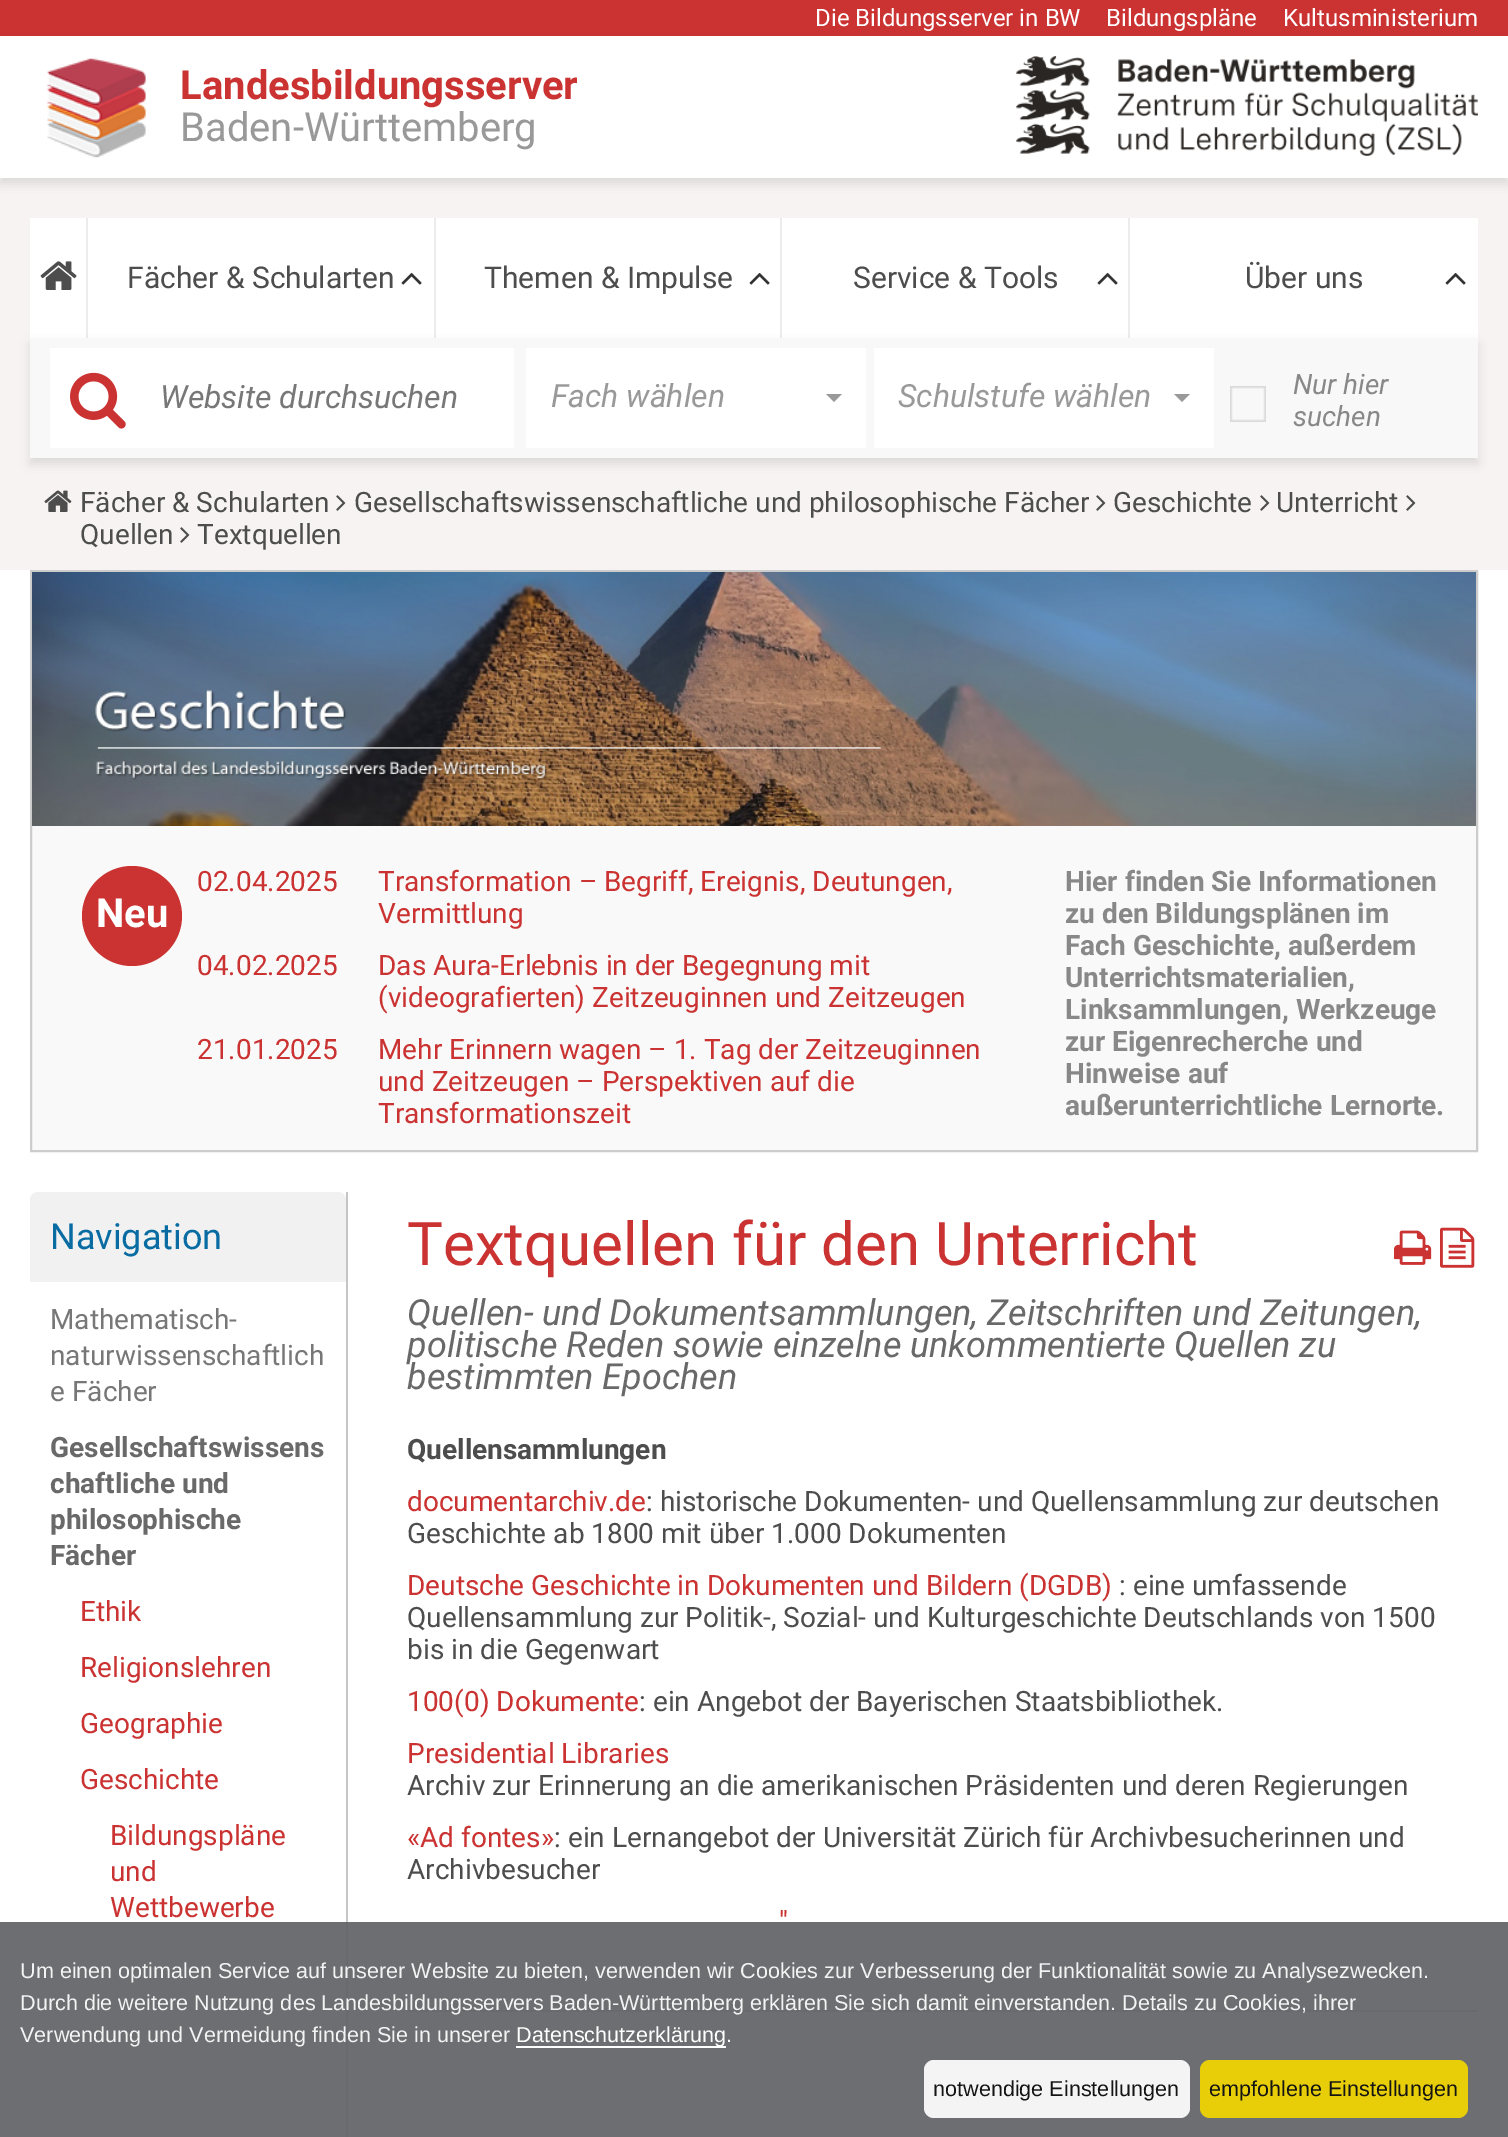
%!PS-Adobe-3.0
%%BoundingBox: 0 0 1508 2137
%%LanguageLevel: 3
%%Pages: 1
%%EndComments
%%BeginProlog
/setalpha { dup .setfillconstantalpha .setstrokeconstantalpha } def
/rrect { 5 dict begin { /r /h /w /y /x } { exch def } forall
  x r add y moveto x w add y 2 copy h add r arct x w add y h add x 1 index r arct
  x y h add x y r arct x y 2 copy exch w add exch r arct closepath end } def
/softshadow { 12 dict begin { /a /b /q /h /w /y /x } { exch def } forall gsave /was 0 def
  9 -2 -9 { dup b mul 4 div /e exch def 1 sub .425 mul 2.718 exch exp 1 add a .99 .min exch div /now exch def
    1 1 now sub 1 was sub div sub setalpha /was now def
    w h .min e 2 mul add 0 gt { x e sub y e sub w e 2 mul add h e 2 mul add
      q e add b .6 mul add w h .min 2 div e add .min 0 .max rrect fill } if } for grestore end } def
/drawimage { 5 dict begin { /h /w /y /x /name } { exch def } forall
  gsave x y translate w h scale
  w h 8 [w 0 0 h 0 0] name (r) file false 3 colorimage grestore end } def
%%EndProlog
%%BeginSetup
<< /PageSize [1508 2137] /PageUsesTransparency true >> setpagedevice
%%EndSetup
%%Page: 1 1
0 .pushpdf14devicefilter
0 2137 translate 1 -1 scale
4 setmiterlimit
0.969 0.953 0.953 setrgbcolor
0 0 1508 2137 rectfill
0.796 0.196 0.196 setrgbcolor
0 0 1508 36 rectfill
0 setgray
0 42 1508 142 0 5 0.1 softshadow
1 setgray
0 36 1508 142 rectfill
(images/1.raw) 47 58 99 100 drawimage
(images/2.raw) 1016 56 462 100 drawimage
30 218 56 120 rectfill
0.925 setgray
86 218 2 120 rectfill
(images/3.raw) 40 261 37 29 drawimage
1 setgray
88 218 346 120 rectfill
0.925 setgray
434 218 2 120 rectfill
(images/4.raw) 401 273 21 12 drawimage
1 setgray
436 218 344 120 rectfill
0.925 setgray
780 218 2 120 rectfill
(images/4.raw) 749 273 21 12 drawimage
1 setgray
782 218 346 120 rectfill
0.925 setgray
1128 218 2 120 rectfill
(images/4.raw) 1097 273 21 12 drawimage
1 setgray
1130 218 348 120 rectfill
(images/4.raw) 1445 273 21 12 drawimage
0 setgray
30 344 1448 120 0 5 0.1 softshadow
0.973 setgray
30 338 1448 120 rectfill
1 setgray
50 348 464 100 rectfill
(images/5.raw) 70 372 56 57 drawimage
526 348 340 100 rectfill
0.6 setgray
newpath 826 394 moveto 842 394 lineto 834 402 lineto closepath fill
1 setgray
874 348 340 100 rectfill
0.6 setgray
newpath 1174 394 moveto 1190 394 lineto 1182 402 lineto closepath fill
(images/6.raw) 1230 386 36 36 drawimage
(images/7.raw) 44 490 28 22 drawimage
(images/8.raw) 336 495 10 16 drawimage
(images/8.raw) 1096 495 10 16 drawimage
(images/8.raw) 1260 495 10 16 drawimage
(images/8.raw) 1406 495 10 16 drawimage
(images/8.raw) 180 527 10 16 drawimage
1 setgray
0 570 1508 1567 rectfill
0.976 setgray
32 826 1444 324 rectfill
0.8 setgray
2 setlinewidth
31 571 1446 580 rectstroke
(images/9.raw) 32 572 1444 254 drawimage
0.796 0.196 0.196 setrgbcolor
newpath 132 916 50 0 360 arc closepath fill
0.773 setgray
346 1192 2 945 rectfill
0.949 0.945 0.945 setrgbcolor
newpath 38 1192 moveto 338 1192 lineto 342.5 1192 346 1195.5 346 1200 curveto 346 1282 lineto 30 1282 lineto 30 1200 lineto 30 1195.5 33.5 1192 38 1192 curveto closepath fill
(images/10.raw) 1394 1230 38 35 drawimage
(images/11.raw) 1440 1227 35 41 drawimage
0.8 setgray
408 2010 1070 2 rectfill
0.92 setalpha
0.38 0.384 0.396 setrgbcolor
0 1922 1508 215 rectfill
1 setalpha
1 setgray
516 2046 210 2 rectfill
0.92 setalpha
924 2060 266 58 10 rrect fill
0.945 0.839 0 setrgbcolor
1200 2060 268 58 10 rrect fill
/Roboto-Regular [24 0 0 -24 0 0] selectfont
1 setalpha
1 setgray
815 26 moveto (Die Bildungsserver in BW) show
1106 26 moveto (Bildungspläne) show
1283 26 moveto (Kultusministerium) show
/Roboto-Bold [40 0 0 -40 0 0] selectfont
0.796 0.196 0.196 setrgbcolor
180 99 moveto (Landesbildungsserver) show
/Roboto-Regular [40 0 0 -40 0 0] selectfont
0.6 setgray
180 141 moveto (Baden-Württemberg) show
/Roboto-Regular [30 0 0 -30 0 0] selectfont
0.302 setgray
127 288 moveto (Fächer & Schularten) show
484 288 moveto (Themen & Impulse) show
853 288 moveto (Service & Tools) show
1245 288 moveto (Über uns) show
/Roboto-Italic [32 0 0 -32 0 0] selectfont
0.467 setgray
160 408 moveto (Website durchsuchen) show
0.6 setgray
551 407 moveto (Fach wählen) show
898 407 moveto (Schulstufe wählen) show
/Roboto-Italic [28 0 0 -28 0 0] selectfont
0.533 setgray
1293 394 moveto (Nur hier) show
1293 426 moveto (suchen) show
/Roboto-Regular [28 0 0 -28 0 0] selectfont
0.302 setgray
80 512 moveto (Fächer & Schularten) show
354 512 moveto (Gesellschaftswissenschaftliche und philosophische Fächer) show
1113 512 moveto (Geschichte) show
1276 512 moveto (Unterricht) show
80 544 moveto (Quellen) show
197 544 moveto (Textquellen) show
/Roboto-Bold [40 0 0 -40 0 0] selectfont
1 setgray
96 927 moveto (Neu) show
/Roboto-Regular [28 0 0 -28 0 0] selectfont
0.796 0.196 0.196 setrgbcolor
197 891 moveto (02.04.2025) show
378 891 moveto (Transformation – Begriff, Ereignis, Deutungen,) show
378 923 moveto (Vermittlung) show
197 975 moveto (04.02.2025) show
378 975 moveto (Das Aura-Erlebnis in der Begegnung mit) show
378 1007 moveto (\(videografierten\) Zeitzeuginnen und Zeitzeugen) show
197 1059 moveto (21.01.2025) show
378 1059 moveto (Mehr Erinnern wagen – 1. Tag der Zeitzeuginnen) show
378 1091 moveto (und Zeitzeugen – Perspektiven auf die) show
378 1123 moveto (Transformationszeit) show
/Roboto-Bold [28 0 0 -28 0 0] selectfont
0.533 setgray
1065 891 moveto (Hier finden Sie Informationen) show
1065 923 moveto (zu den Bildungsplänen im) show
1065 955 moveto (Fach Geschichte, außerdem) show
1065 987 moveto (Unterrichtsmaterialien,) show
1065 1019 moveto (Linksammlungen, Werkzeuge) show
1065 1051 moveto (zur Eigenrecherche und) show
1065 1083 moveto (Hinweise auf) show
1065 1115 moveto (außerunterrichtliche Lernorte.) show
/Roboto-Regular [36 0 0 -36 0 0] selectfont
0.031 0.424 0.639 setrgbcolor
50 1249 moveto (Navigation) show
/Roboto-Regular [28 0 0 -28 0 0] selectfont
0.467 setgray
50 1329 moveto (Mathematisch-) show
50 1365 moveto (naturwissenschaftlich) show
50 1401 moveto (e Fächer) show
/Roboto-Bold [28 0 0 -28 0 0] selectfont
0.412 setgray
50 1457 moveto (Gesellschaftswissens) show
50 1493 moveto (chaftliche und) show
50 1529 moveto (philosophische) show
50 1565 moveto (Fächer) show
/Roboto-Regular [28 0 0 -28 0 0] selectfont
0.796 0.196 0.196 setrgbcolor
80 1621 moveto (Ethik) show
80 1677 moveto (Religionslehren) show
80 1733 moveto (Geographie) show
80 1789 moveto (Geschichte) show
110 1845 moveto (Bildungspläne) show
110 1881 moveto (und) show
110 1917 moveto (Wettbewerbe) show
/Roboto-Regular [60 0 0 -60 0 0] selectfont
407 1265 moveto (Textquellen für den Unterricht) show
/Roboto-Italic [36 0 0 -36 0 0] selectfont
0.412 setgray
407 1325 moveto (Quellen- und Dokumentsammlungen, Zeitschriften und Zeitungen,) show
407 1357 moveto (politische Reden sowie einzelne unkommentierte Quellen zu) show
407 1389 moveto (bestimmten Epochen) show
/Roboto-Bold [28 0 0 -28 0 0] selectfont
0.302 setgray
407 1459 moveto (Quellensammlungen) show
/Roboto-Regular [28 0 0 -28 0 0] selectfont
0.796 0.196 0.196 setrgbcolor
407 1511 moveto (documentarchiv.de) show
0.302 setgray
646 1511 moveto (: historische Dokumenten- und Quellensammlung zur deutschen) show
407 1543 moveto (Geschichte ab 1800 mit über 1.000 Dokumenten) show
0.796 0.196 0.196 setrgbcolor
407 1595 moveto (Deutsche Geschichte in Dokumenten und Bildern \(DGDB\)) show
0.302 setgray
1119 1595 moveto (: eine umfassende) show
407 1627 moveto (Quellensammlung zur Politik-, Sozial- und Kulturgeschichte Deutschlands von 1500) show
407 1659 moveto (bis in die Gegenwart) show
0.796 0.196 0.196 setrgbcolor
407 1711 moveto (100\(0\) Dokumente) show
0.302 setgray
639 1711 moveto (: ein Angebot der Bayerischen Staatsbibliothek.) show
0.796 0.196 0.196 setrgbcolor
407 1763 moveto (Presidential Libraries) show
0.302 setgray
407 1795 moveto (Archiv zur Erinnerung an die amerikanischen Präsidenten und deren Regierungen) show
0.796 0.196 0.196 setrgbcolor
407 1847 moveto («Ad fontes») show
0.302 setgray
554 1847 moveto (: ein Lernangebot der Universität Zürich für Archivbesucherinnen und) show
407 1879 moveto (Archivbesucher) show
0.796 0.196 0.196 setrgbcolor
779 1931 moveto (") show
/LiberationSans-Regular [21.6 0 0 -21.6 0 0] selectfont
0.953 0.953 0.957 setrgbcolor
20 1978 moveto (Um einen optimalen Service auf unserer Website zu bieten, verwenden wir Cookies zur Verbesserung der Funktionalität sowie zu Analysezwecken.) show
20 2010 moveto (Durch die weitere Nutzung des Landesbildungsservers Baden-Württemberg erklären Sie sich damit einverstanden. Details zu Cookies, ihrer) show
20 2042 moveto (Verwendung und Vermeidung finden Sie in unserer) show
1 setgray
516 2042 moveto (Datenschutzerklärung.) show
0.078 setgray
933 2096 moveto (notwendige Einstellungen) show
1209 2096 moveto (empfohlene Einstellungen) show
.poppdf14devicefilter showpage
%%EOF
